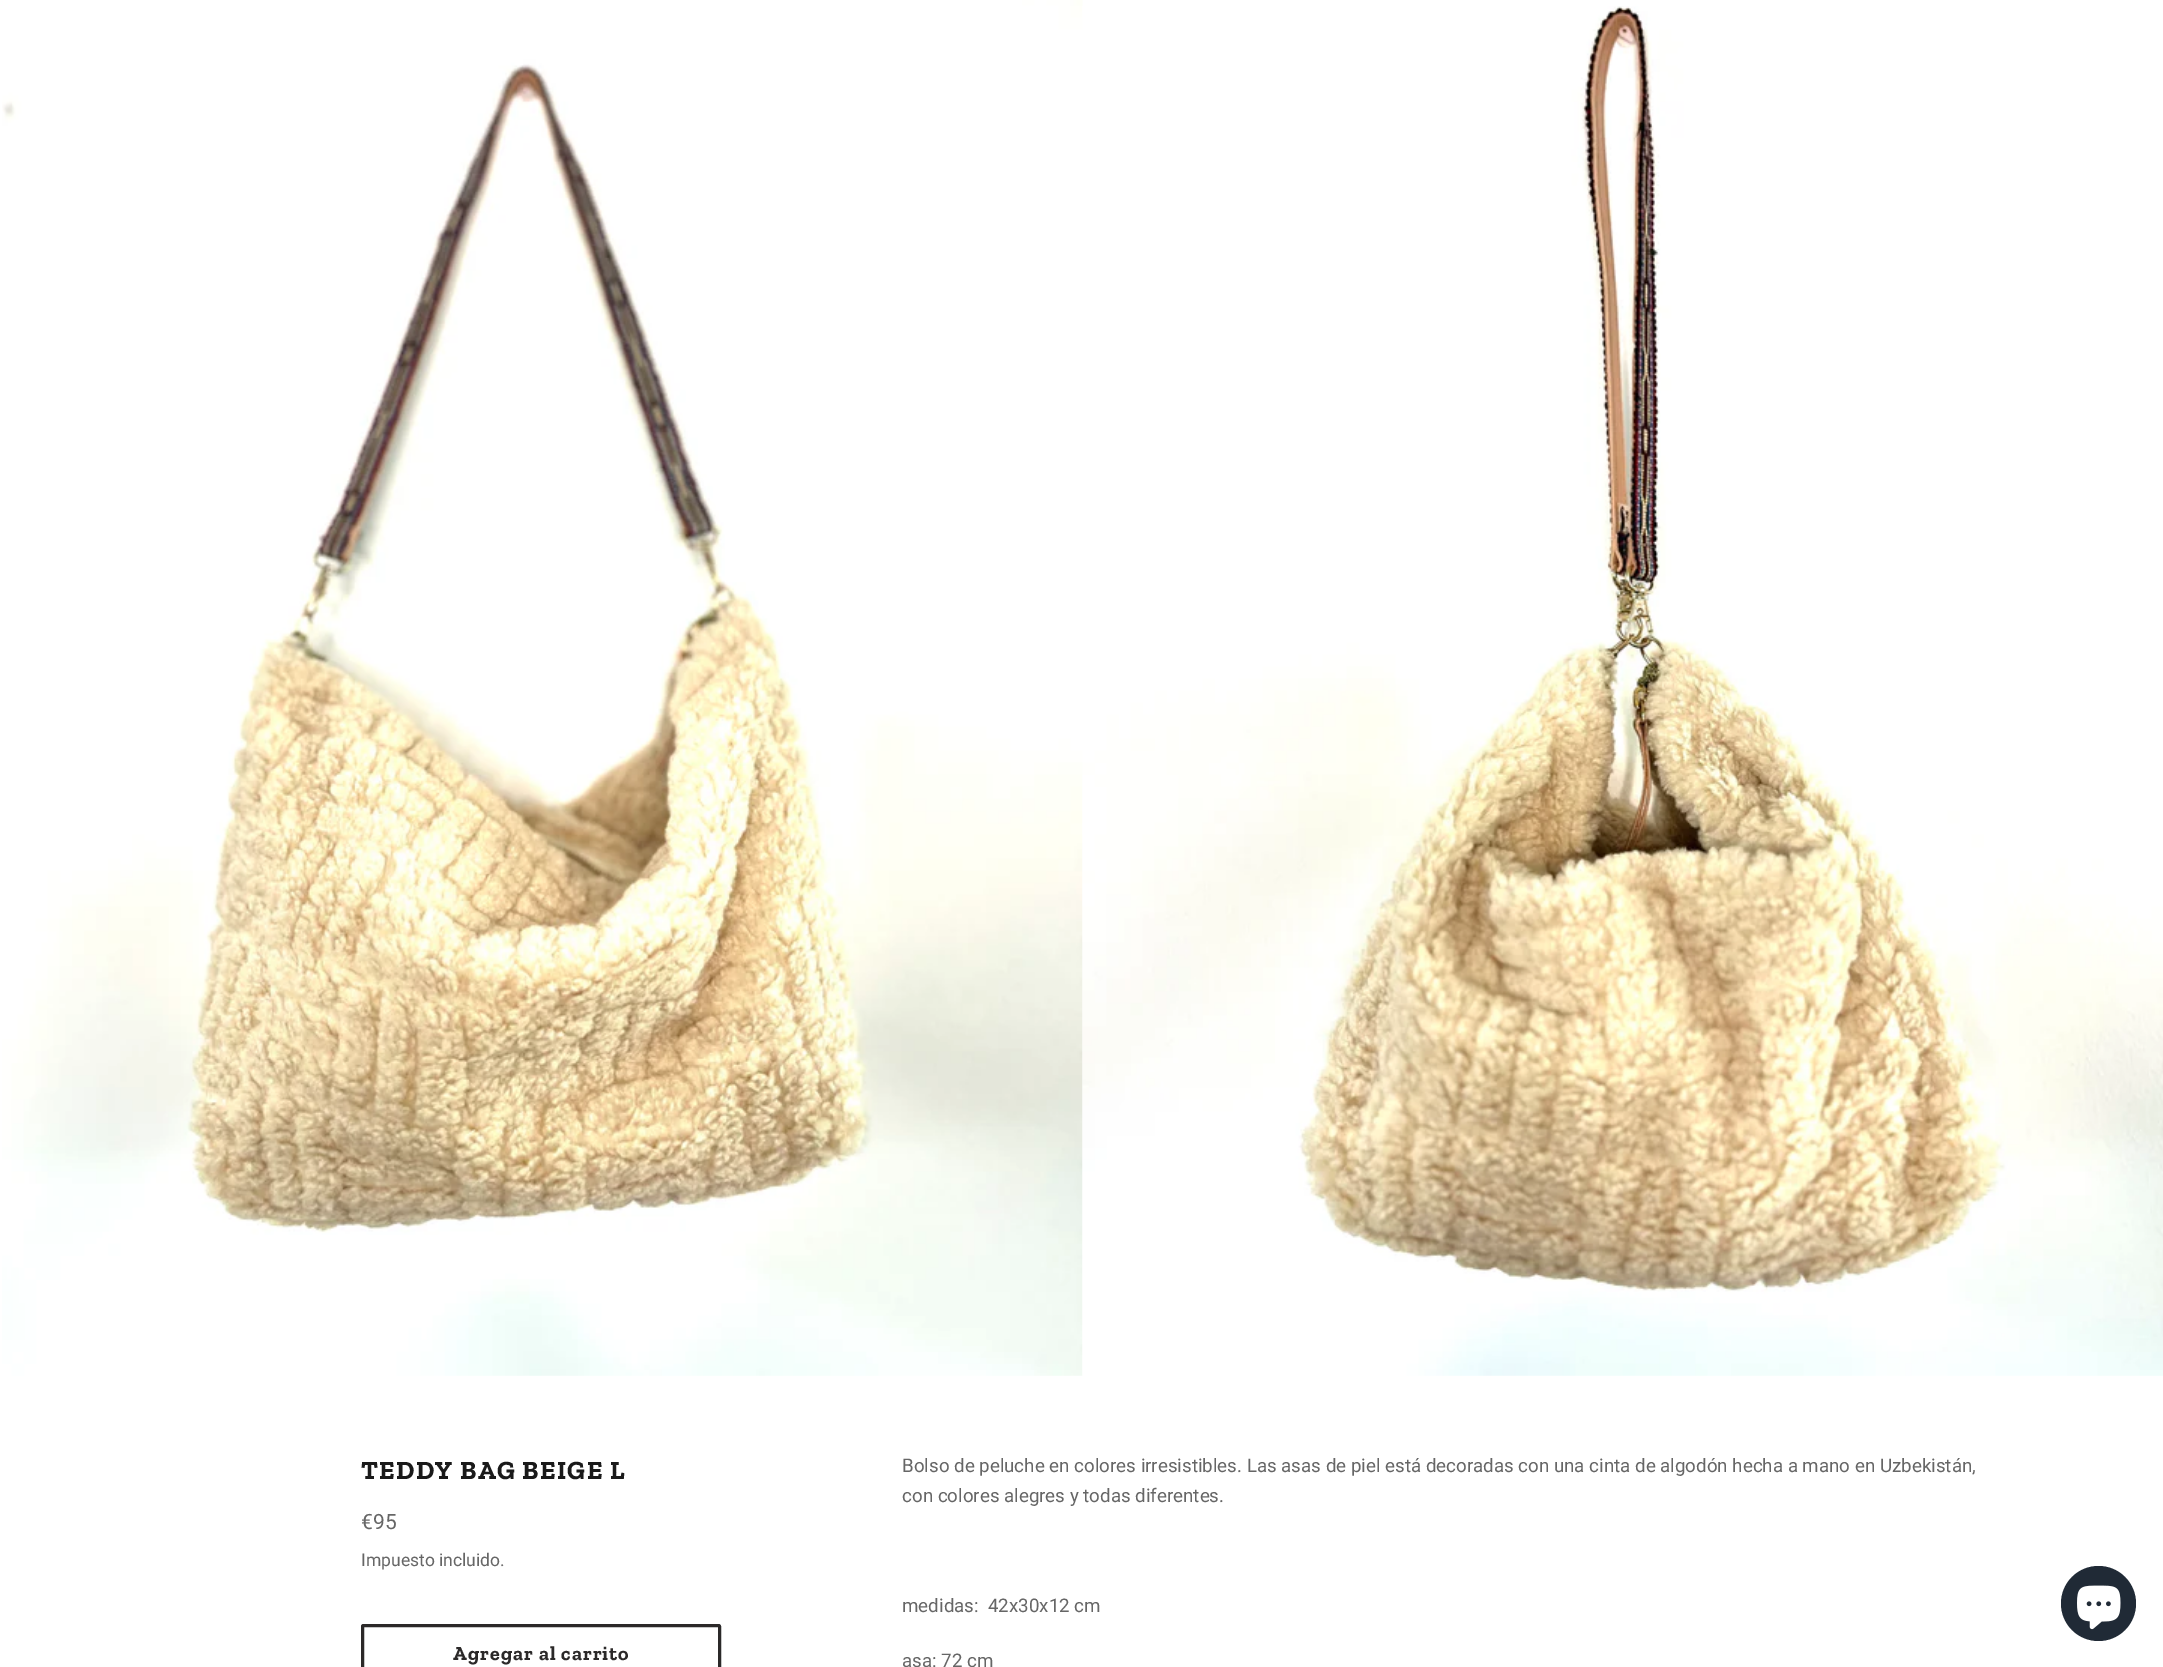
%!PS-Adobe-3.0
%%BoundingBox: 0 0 2163 1667
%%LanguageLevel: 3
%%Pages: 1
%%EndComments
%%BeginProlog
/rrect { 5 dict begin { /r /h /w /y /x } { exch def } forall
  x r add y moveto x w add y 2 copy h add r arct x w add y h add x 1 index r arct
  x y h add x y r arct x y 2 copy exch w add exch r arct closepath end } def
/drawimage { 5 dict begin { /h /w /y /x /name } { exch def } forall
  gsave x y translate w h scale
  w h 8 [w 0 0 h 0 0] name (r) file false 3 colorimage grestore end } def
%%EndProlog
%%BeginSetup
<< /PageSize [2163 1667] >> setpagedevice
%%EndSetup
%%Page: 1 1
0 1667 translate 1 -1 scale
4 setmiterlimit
1 setgray
0 0 2163 1667 rectfill
(images/1.raw) 2 0 1081 1376 drawimage
(images/2.raw) 1082 6 1081 1370 drawimage
0.169 0.161 0.161 setrgbcolor
3 setlinewidth
362.5 1625.5 357 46 1 rrect stroke
0.125 0.165 0.212 setrgbcolor
newpath 2098.5 1603.5 37.5 0 360 arc closepath fill
(images/3.raw) 2077 1585 44 45 drawimage
/ZillaSlab-Bold [26.25 0 0 -26.25 0 0] selectfont
0.102 setgray
361 1479 moveto 1.3 0 (TEDDY BAG BEIGE L) ashow
/Roboto-Regular [21 0 0 -21 0 0] selectfont
0.4 setgray
361 1529 moveto (€95) show
/Roboto-Regular [17.5 0 0 -17.5 0 0] selectfont
361 1566 moveto (Impuesto incluido.) show
/ZillaSlab-Bold [20 0 0 -20 0 0] selectfont
0.169 0.161 0.161 setrgbcolor
453 1660 moveto 1 0 (Agregar al carrito) ashow
/Roboto-Regular [18.75 0 0 -18.75 0 0] selectfont
0.4 setgray
902 1472 moveto (Bolso de peluche en colores irresistibles. Las asas de piel está decoradas con una cinta de algodón hecha a mano en Uzbekistán,) show
902 1502 moveto (con colores alegres y todas diferentes.) show
902 1612 moveto (medidas:  42x30x12 cm) show
902 1667 moveto (asa: 72 cm) show
showpage
%%EOF
